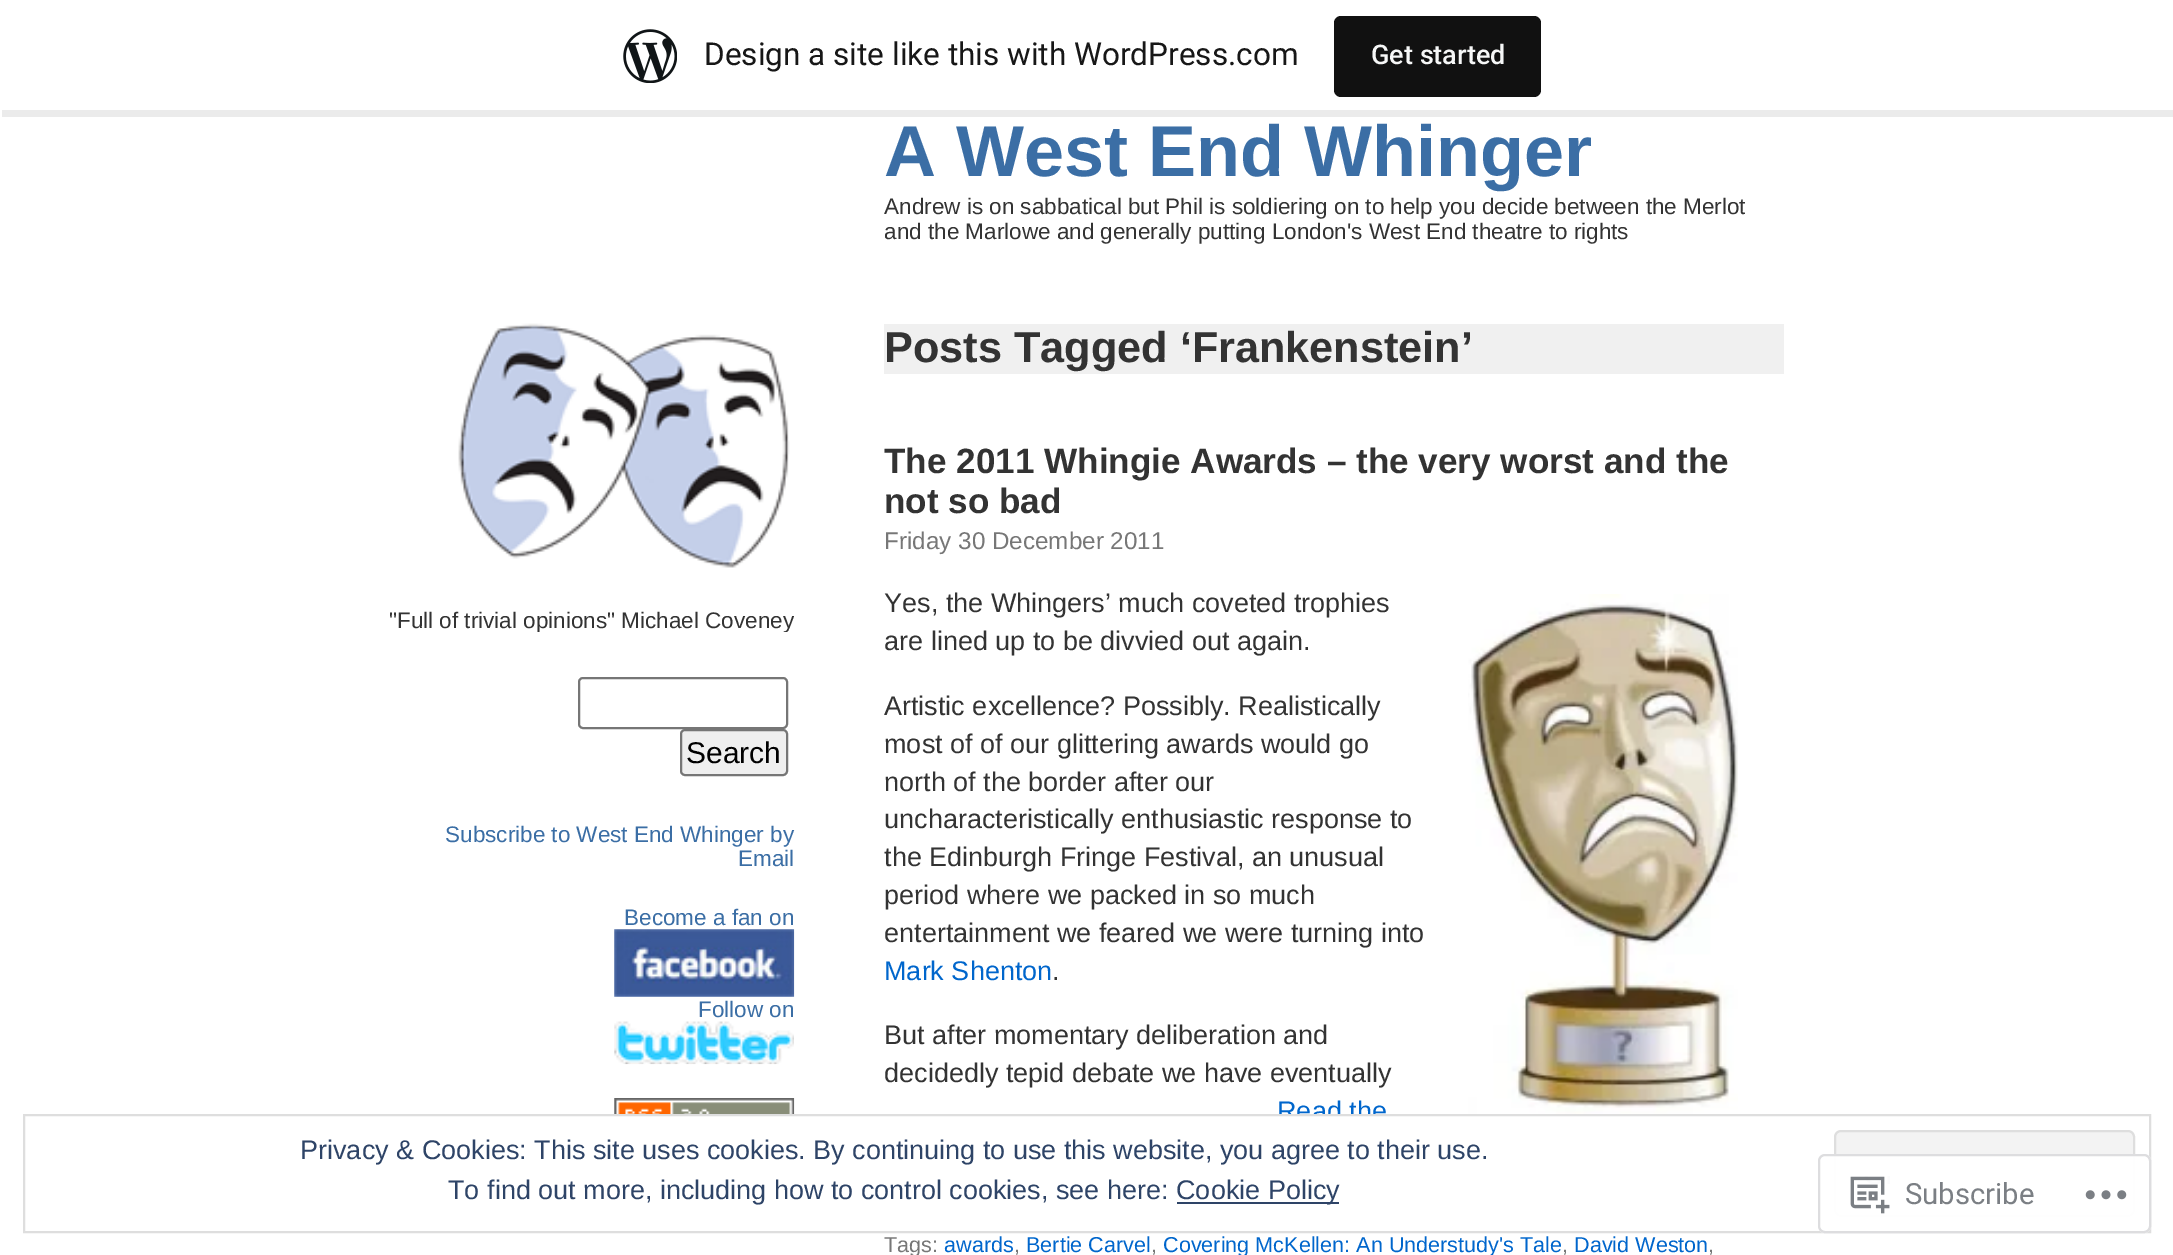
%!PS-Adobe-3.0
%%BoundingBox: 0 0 2173 1255
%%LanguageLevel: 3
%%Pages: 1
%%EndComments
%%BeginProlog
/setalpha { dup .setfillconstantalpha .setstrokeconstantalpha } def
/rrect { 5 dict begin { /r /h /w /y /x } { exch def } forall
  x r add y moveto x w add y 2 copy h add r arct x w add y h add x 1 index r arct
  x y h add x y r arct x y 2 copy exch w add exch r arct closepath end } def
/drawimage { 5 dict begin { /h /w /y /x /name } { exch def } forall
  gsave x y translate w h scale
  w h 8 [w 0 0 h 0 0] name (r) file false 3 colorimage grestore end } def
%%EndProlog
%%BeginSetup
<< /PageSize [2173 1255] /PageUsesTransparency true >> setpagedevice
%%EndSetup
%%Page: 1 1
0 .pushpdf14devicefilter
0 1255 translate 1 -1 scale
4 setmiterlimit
1 setgray
0 0 2173 1255 rectfill
0.08 setalpha
0 setgray
newpath 2 110 moveto 2 117 lineto 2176 117 lineto 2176 7 lineto 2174 7 lineto 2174 110 lineto closepath fill
1 setalpha
(images/1.raw) 623 29 54 54 drawimage
0.067 setgray
1334 16 207 81 7 rrect fill
(images/2.raw) 458 323 332 245 drawimage
0.463 setgray
2 setlinewidth
579 678 208 50 4 rrect stroke
0.937 setgray
681 730 106 45 4 rrect gsave fill grestore
0.463 setgray
stroke
(images/3.raw) 614 929 181 68 drawimage
(images/4.raw) 614 1021 180 44 drawimage
(images/5.raw) 614 1098 181 16 drawimage
0.941 setgray
884 324 900 50 rectfill
(images/6.raw) 1468 594 270 520 drawimage
/Roboto-Regular [31.5 0 0 -31.5 0 0] selectfont
0.09 setgray
704 65 moveto (Design a site like this with WordPress.com) show
/Roboto-Medium [27 0 0 -27 0 0] selectfont
0.965 0.969 0.969 setrgbcolor
1371 64 moveto (Get started) show
/LiberationSans-Bold [72 0 0 -72 0 0] selectfont
0.231 0.431 0.647 setrgbcolor
884 176 moveto (A West End Whinger) show
/LiberationSans-Regular [22.5 0 0 -22.5 0 0] selectfont
0.2 setgray
884 214 moveto (Andrew is on sabbatical but Phil is soldiering on to help you decide between the Merlot) show
884 239 moveto (and the Marlowe and generally putting London's West End theatre to rights) show
gsave
389 608 405 24 rectclip
389 628 moveto ("Full of trivial opinions" Michael Coveney) show
grestore
/LiberationSans-Regular [30 0 0 -30 0 0] selectfont
0 setgray
686 763 moveto (Search) show
/LiberationSans-Regular [22.5 0 0 -22.5 0 0] selectfont
0.231 0.431 0.647 setrgbcolor
445 842 moveto (Subscribe to West End Whinger by) show
738 866 moveto (Email) show
624 925 moveto (Become a fan on) show
698 1017 moveto (Follow on) show
/LiberationSans-Bold [43.25 0 0 -43.25 0 0] selectfont
0.2 setgray
884 362 moveto (Posts Tagged ‘Frankenstein’) show
/LiberationSans-Bold [35.1 0 0 -35.1 0 0] selectfont
884 473 moveto (The 2011 Whingie Awards – the very worst and the) show
884 513 moveto (not so bad) show
/LiberationSans-Regular [24.25 0 0 -24.25 0 0] selectfont
0.467 setgray
884 549 moveto (Friday 30 December 2011) show
/LiberationSans-Regular [27 0 0 -27 0 0] selectfont
0.2 setgray
884 612 moveto (Yes, the Whingers’ much coveted trophies) show
884 650 moveto (are lined up to be divvied out again.) show
884 715 moveto (Artistic excellence? Possibly. Realistically) show
884 753 moveto (most of of our glittering awards would go) show
884 791 moveto (north of the border after our) show
884 828 moveto (uncharacteristically enthusiastic response to) show
884 866 moveto (the Edinburgh Fringe Festival, an unusual) show
884 904 moveto (period where we packed in so much) show
884 942 moveto (entertainment we feared we were turning into) show
0 0.4 0.8 setrgbcolor
884 980 moveto (Mark Shenton) show
0.2 setgray
1052 980 moveto (.) show
884 1044 moveto (But after momentary deliberation and) show
884 1082 moveto (decidedly tepid debate we have eventually) show
0 0.4 0.8 setrgbcolor
1277 1120 moveto (Read the) show
/LiberationSans-Regular [21.6 0 0 -21.6 0 0] selectfont
0.467 setgray
884 1252 moveto (Tags:) show
0 0.4 0.8 setrgbcolor
944 1252 moveto (awards) show
0.467 setgray
1014 1252 moveto (,) show
0 0.4 0.8 setrgbcolor
1026 1252 moveto (Bertie Carvel) show
0.467 setgray
1151 1252 moveto (,) show
0 0.4 0.8 setrgbcolor
1163 1252 moveto (Covering McKellen: An Understudy's Tale) show
0.467 setgray
1562 1252 moveto (,) show
0 0.4 0.8 setrgbcolor
1574 1252 moveto (David Weston) show
0.467 setgray
1708 1252 moveto (,) show
1 setgray
1279 1116 107 5 rectfill
0.871 setgray
24 1115 2126 117 rectstroke
/LiberationSans-Regular [27 0 0 -27 0 0] selectfont
0.18 0.267 0.404 setrgbcolor
300 1159 moveto (Privacy & Cookies: This site uses cookies. By continuing to use this website, you agree to their use.) show
0.953 setgray
1835 1131 299 85 6 rrect gsave fill grestore
0.871 setgray
stroke
0.18 0.267 0.404 setrgbcolor
448 1199 moveto (To find out more, including how to control cookies, see here:) show
1177 1202 162 2 rectfill
1176 1199 moveto (Cookie Policy) show
0.98 setalpha
1 setgray
1818 1154 333 79 7 rrect fill
0.863 0.863 0.871 setrgbcolor
1819 1155 331 77 6 rrect stroke
1 setalpha
(images/7.raw) 1850 1176 40 38 drawimage
/Roboto-Regular [29.25 0 0 -29.25 0 0] selectfont
0.482 0.498 0.518 setrgbcolor
1905 1204 moveto (Subscribe) show
(images/8.raw) 2085 1190 42 10 drawimage
.poppdf14devicefilter showpage
%%EOF
